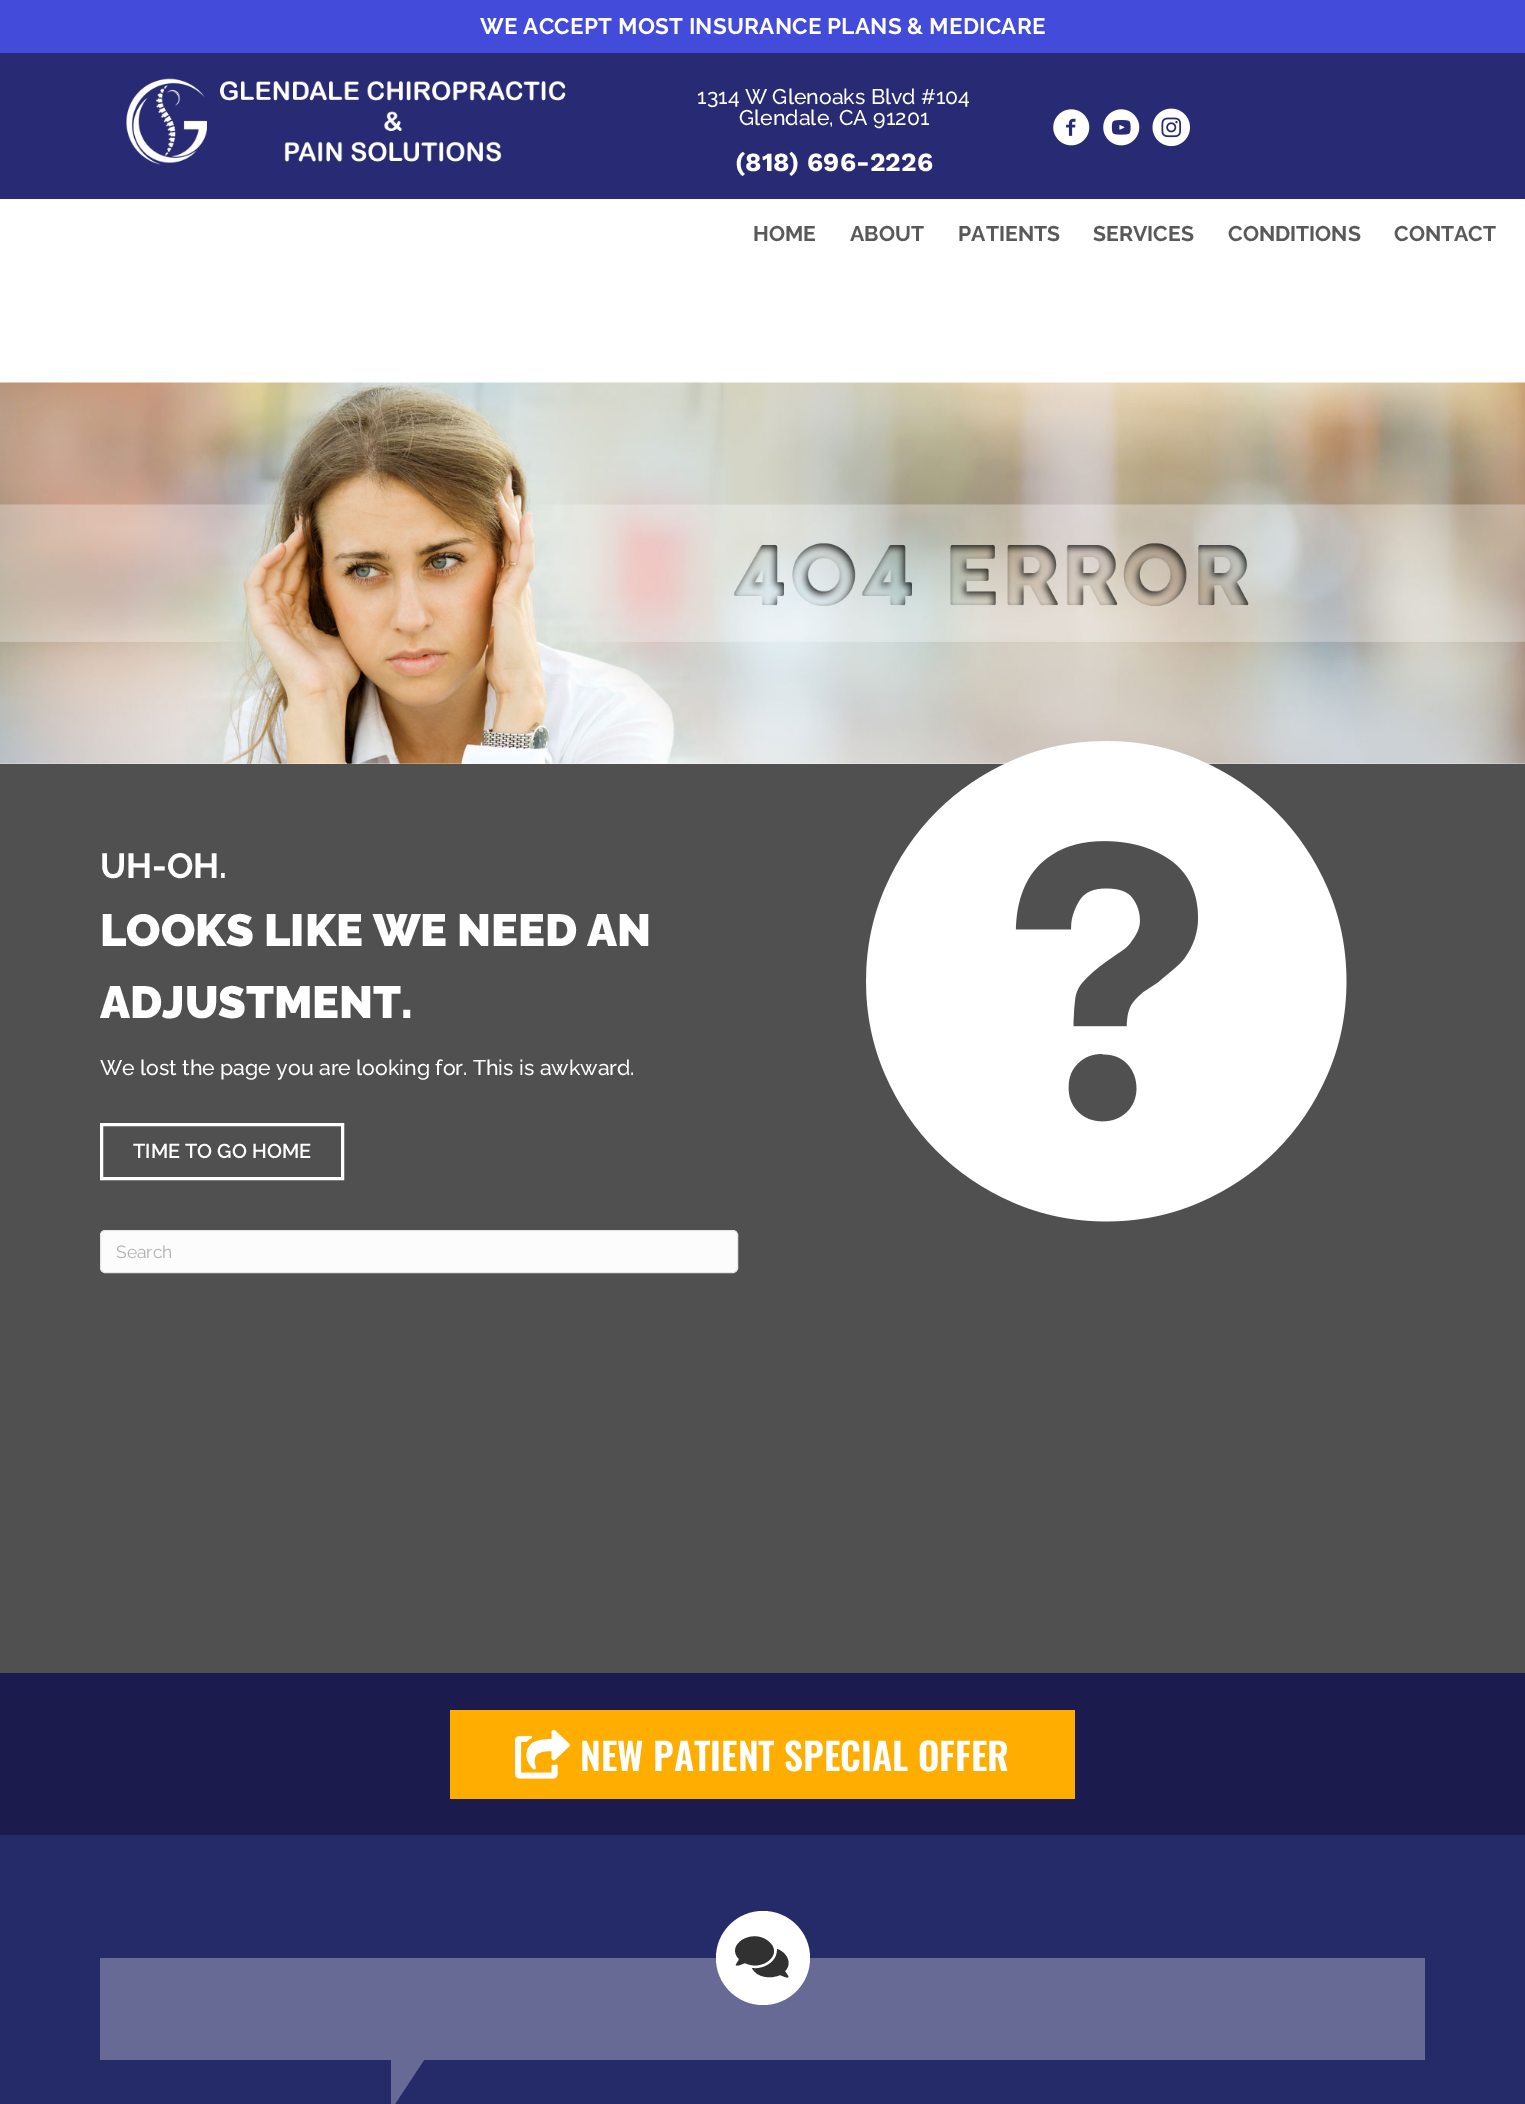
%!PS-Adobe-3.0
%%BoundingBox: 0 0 1525 2104
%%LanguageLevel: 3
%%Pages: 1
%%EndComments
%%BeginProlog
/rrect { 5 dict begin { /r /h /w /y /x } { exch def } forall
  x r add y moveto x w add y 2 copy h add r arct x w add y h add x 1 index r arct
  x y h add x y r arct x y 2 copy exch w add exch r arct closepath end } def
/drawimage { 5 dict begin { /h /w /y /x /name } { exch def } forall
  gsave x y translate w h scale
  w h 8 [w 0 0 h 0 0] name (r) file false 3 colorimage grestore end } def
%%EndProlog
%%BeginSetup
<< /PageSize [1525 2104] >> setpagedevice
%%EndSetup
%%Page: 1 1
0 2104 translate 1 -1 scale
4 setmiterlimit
1 setgray
0 0 1525 2104 rectfill
0.263 0.294 0.859 setrgbcolor
0 0 1525 53 rectfill
0.157 0.165 0.451 setrgbcolor
0 53 1525 146 rectfill
(images/1.raw) 126 78 440 87 drawimage
(images/2.raw) 1053 109 37 37 drawimage
(images/3.raw) 1103 109 37 37 drawimage
(images/4.raw) 1152 108 38 39 drawimage
(images/5.raw) 0 382 1525 382 drawimage
0.314 setgray
0 764 1525 909 rectfill
1 setgray
3 setlinewidth
101.5 1124.5 241 54 rectstroke
0.988 setgray
100.5 1230.5 637 42 4.5 rrect gsave fill grestore
0.902 setgray
1 setlinewidth
stroke
(images/6.raw) 866 741 481 481 drawimage
0.106 0.11 0.302 setrgbcolor
0 1673 1525 162 rectfill
1 0.682 0 setrgbcolor
450 1710 625 89 rectfill
(images/7.raw) 515 1729 55 50 drawimage
0.145 0.165 0.408 setrgbcolor
0 1835 1525 269 rectfill
0.4 0.416 0.584 setrgbcolor
100 1958 1325 102 rectfill
1 setgray
newpath 763 1958 47 0 360 arc closepath fill
0.192 setgray
newpath 768 1941 moveto 785 1954 762 1972 745 1963 curveto 740 1965 lineto 732 1967 738 1963 739 1959 curveto 725 1945 752 1928 768 1941 curveto closepath 785 1971 moveto 786 1974 792 1979 785 1977 curveto 780 1975 lineto 771 1979 757 1978 752 1968 curveto 763 1970 778 1962 777 1949 curveto 786 1952 793 1963 785 1971 curveto closepath fill
0.4 0.416 0.584 setrgbcolor
newpath 391 2060 moveto 424 2060 lineto 391 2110 lineto closepath fill
/Raleway-Bold [22.5 0 0 -22.5 0 0] selectfont
1 setgray
480 34 moveto 0.25 0 (WE ACCEPT MOST INSURANCE PLANS & MEDICARE) ashow
/Raleway-Medium [21.25 0 0 -21.25 0 0] selectfont
697 104 moveto (1314 W Glenoaks Blvd #104) show
739 125 moveto (Glendale, CA 91201) show
/WorkSans-Bold [26.25 0 0 -26.25 0 0] selectfont
735 171 moveto (\(818\) 696-2226) show
/Raleway-Bold [21.25 0 0 -21.25 0 0] selectfont
0.349 setgray
753 241 moveto (HOME) show
850 241 moveto (ABOUT) show
958 241 moveto (PATIENTS) show
1093 241 moveto (SERVICES) show
1228 241 moveto (CONDITIONS) show
1394 241 moveto (CONTACT) show
/Raleway-Bold [35 0 0 -35 0 0] selectfont
1 setgray
100 878 moveto (UH-OH.) show
/Raleway-Black [45 0 0 -45 0 0] selectfont
100 946 moveto (LOOKS LIKE WE NEED AN) show
100 1018 moveto (ADJUSTMENT.) show
/Raleway-Medium [21.25 0 0 -21.25 0 0] selectfont
100 1075 moveto (We lost the page you are looking for. This is awkward.) show
/Raleway-SemiBold [20 0 0 -20 0 0] selectfont
133 1158 moveto (TIME TO GO HOME) show
/Raleway-Regular [17.5 0 0 -17.5 0 0] selectfont
0.698 setgray
116 1258 moveto (Search) show
/Oswald-SemiBold [37.5 0 0 -37.5 0 0] selectfont
1 setgray
580 1771 moveto (NEW PATIENT SPECIAL OFFER) show
showpage
%%EOF
